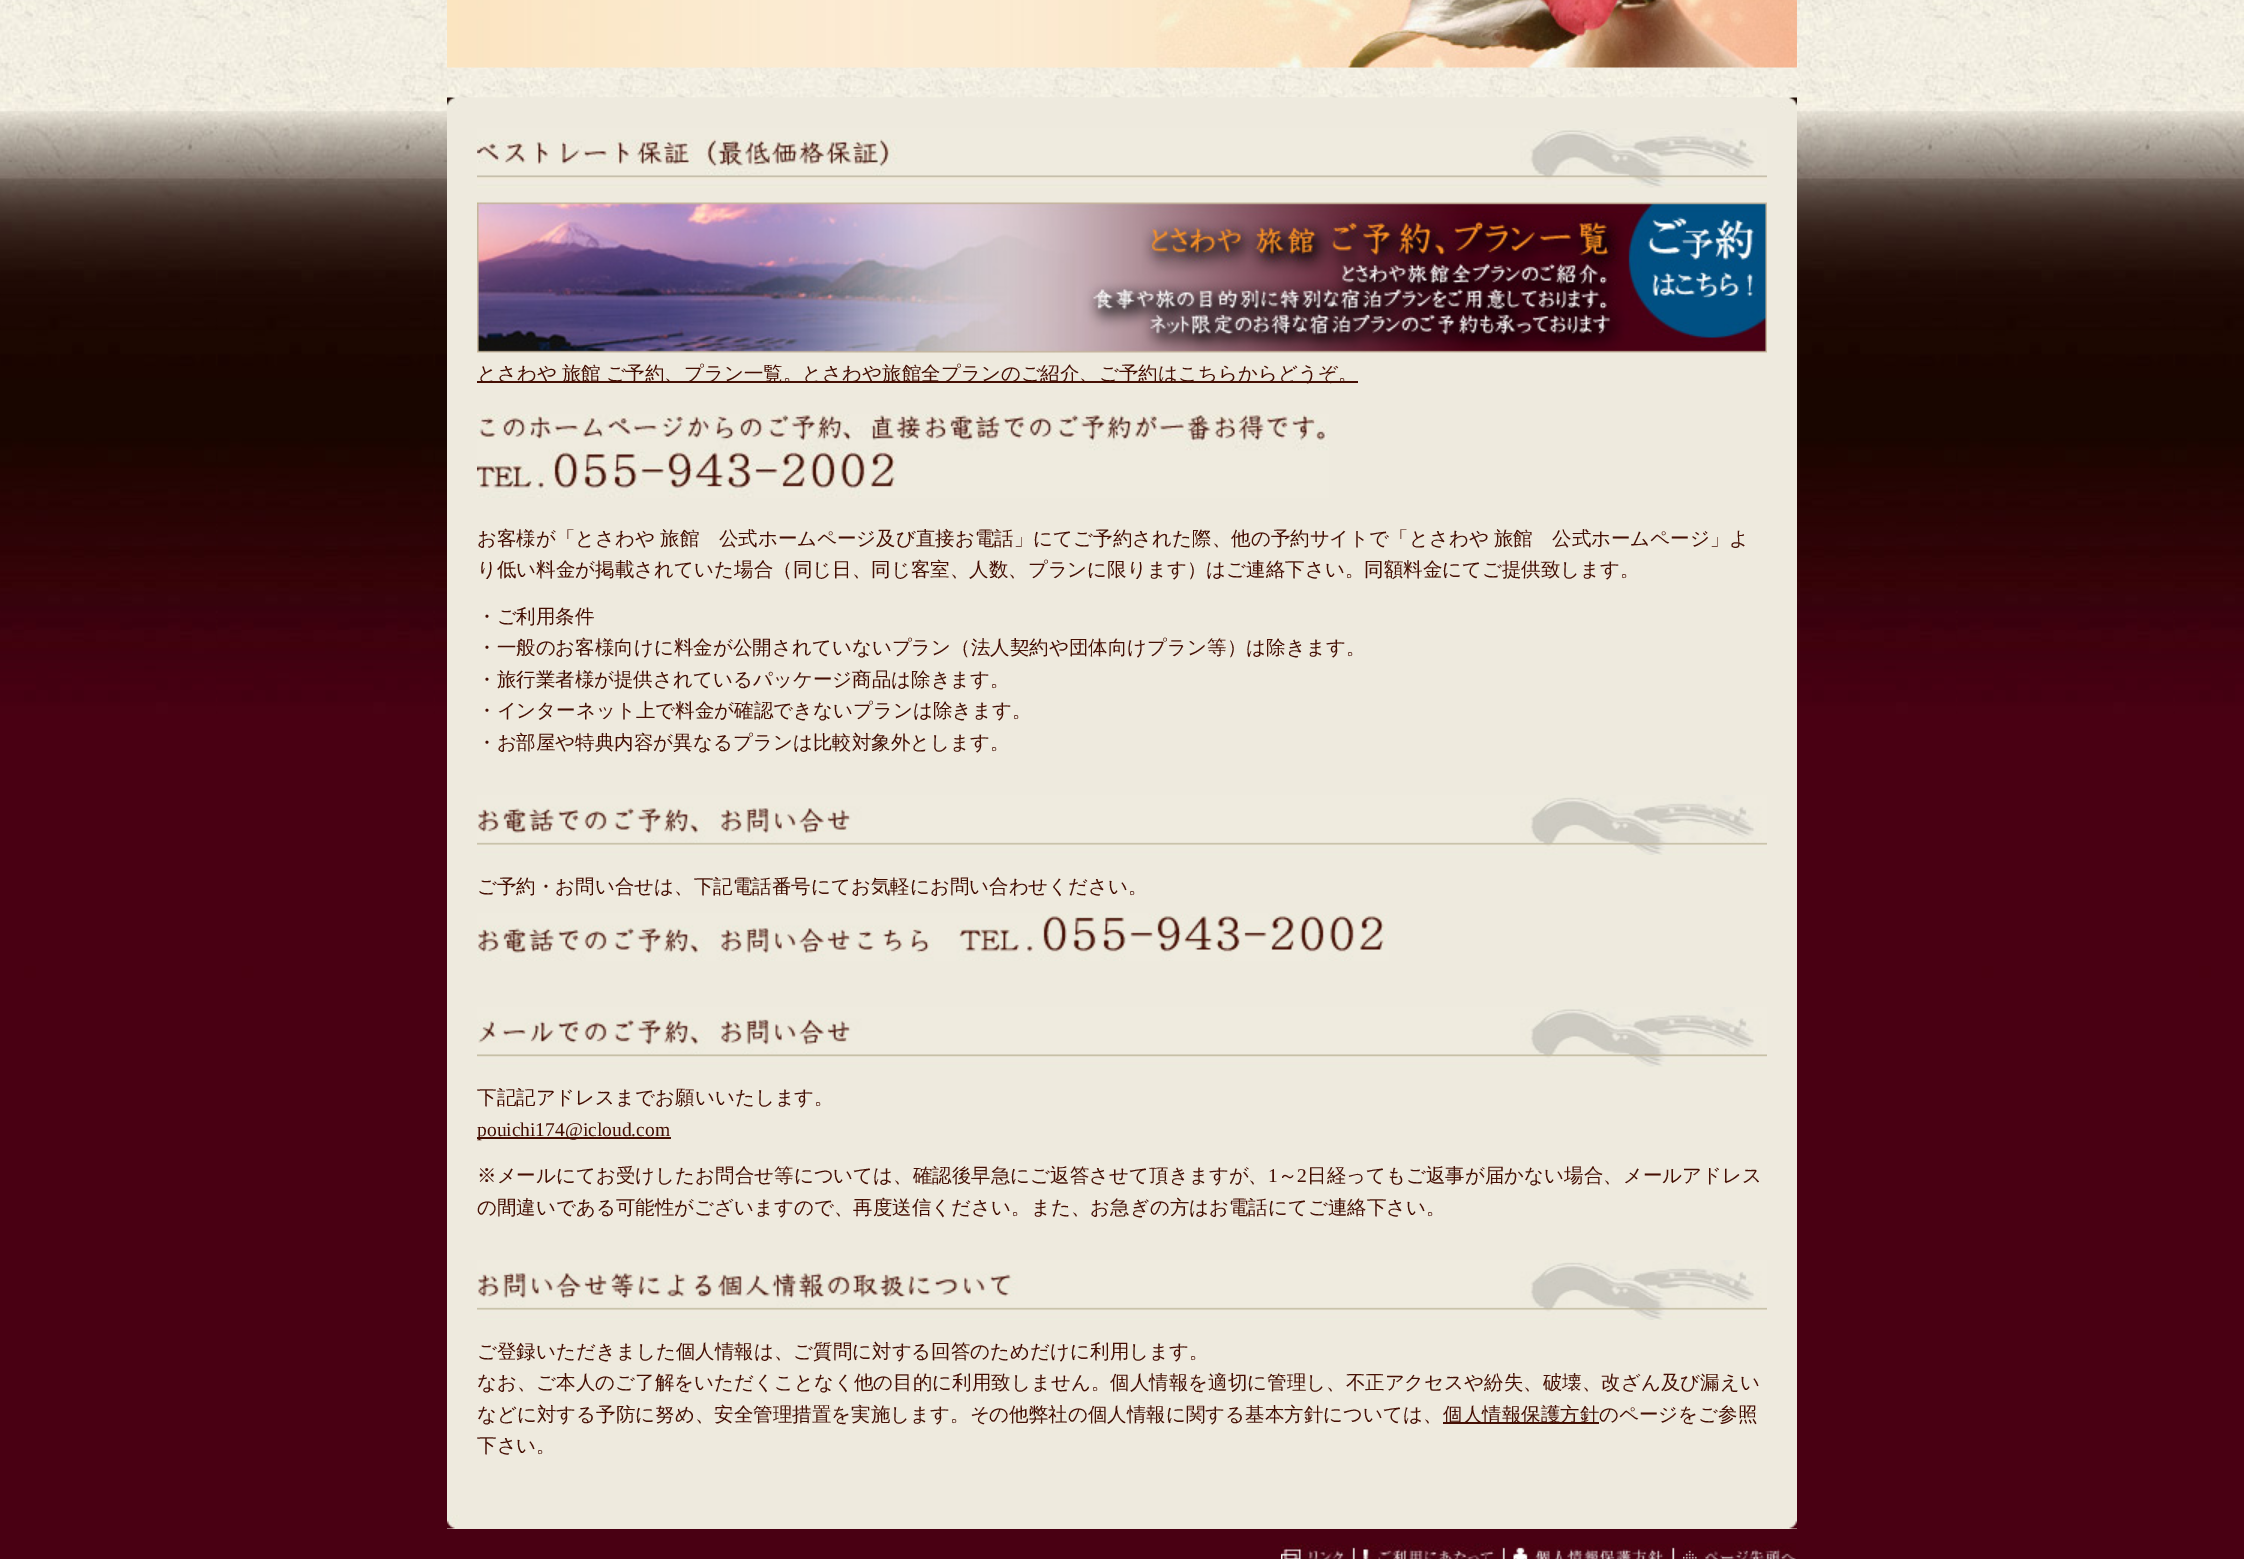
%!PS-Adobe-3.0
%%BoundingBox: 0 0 2244 1559
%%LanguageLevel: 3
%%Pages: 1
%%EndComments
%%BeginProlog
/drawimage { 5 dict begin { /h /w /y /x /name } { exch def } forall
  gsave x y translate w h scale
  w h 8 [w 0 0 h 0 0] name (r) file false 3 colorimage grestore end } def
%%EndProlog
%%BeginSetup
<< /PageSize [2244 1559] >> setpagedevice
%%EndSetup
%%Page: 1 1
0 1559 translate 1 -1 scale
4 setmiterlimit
1 setgray
0 0 2244 1559 rectfill
(images/1.raw) 0 0 2244 1559 drawimage
(images/2.raw) 447 0 1350 68 drawimage
(images/3.raw) 447 97 1350 15 drawimage
0.933 0.918 0.871 setrgbcolor
447 112 1350 1417 rectfill
(images/4.raw) 477 128 1290 60 drawimage
(images/5.raw) 477 202 1290 151 drawimage
0.271 0.059 0.012 setrgbcolor
477 381 881 2 rectfill
(images/6.raw) 477 414 852 84 drawimage
(images/7.raw) 477 795 1290 60 drawimage
(images/8.raw) 477 913 912 48 drawimage
(images/9.raw) 477 1007 1290 60 drawimage
477 1137 194 2 rectfill
(images/10.raw) 477 1260 1290 60 drawimage
1443 1422 156 2 rectfill
(images/11.raw) 447 1515 1350 14 drawimage
(images/12.raw) 1281 1543 63 16 drawimage
(images/13.raw) 1344 1545 12 14 drawimage
(images/14.raw) 1363 1543 131 16 drawimage
(images/13.raw) 1494 1545 12 14 drawimage
(images/15.raw) 1513 1544 151 15 drawimage
(images/16.raw) 1663 1544 12 15 drawimage
(images/17.raw) 1683 1543 113 16 drawimage
/WenQuanYiZenHei-Medium [19.5 0 0 -19.5 0 0] selectfont
477 380 moveto -1 0 32 (とさわや 旅館 ご予約、プラン一覧。とさわや旅館全プランのご紹介、ご予約はこちらからどうぞ。) widthshow
477 545 moveto -1 0 32 (お客様が「とさわや 旅館　公式ホームページ及び直接お電話」にてご予約された際、他の予約サイトで「とさわや 旅館　公式ホームページ」よ) widthshow
477 576 moveto (り低い料金が掲載されていた場合（同じ日、同じ客室、人数、プランに限ります）はご連絡下さい。同額料金にてご提供致します。) show
477 623 moveto (・ご利用条件) show
477 654 moveto (・一般のお客様向けに料金が公開されていないプラン（法人契約や団体向けプラン等）は除きます。) show
477 686 moveto (・旅行業者様が提供されているパッケージ商品は除きます。) show
477 717 moveto (・インターネット上で料金が確認できないプランは除きます。) show
477 749 moveto (・お部屋や特典内容が異なるプランは比較対象外とします。) show
477 893 moveto (ご予約・お問い合せは、下記電話番号にてお気軽にお問い合わせください。) show
477 1104 moveto (下記記アドレスまでお願いいたします。) show
/LiberationSerif-Regular [19.5 0 0 -19.5 0 0] selectfont
477 1136 moveto (pouichi174@icloud.com) show
/WenQuanYiZenHei-Medium [19.5 0 0 -19.5 0 0] selectfont
477 1182 moveto (※メールにてお受けしたお問合せ等については、確認後早急にご返答させて頂きますが、) show
/LiberationSerif-Regular [19.5 0 0 -19.5 0 0] selectfont
1268 1182 moveto (1) show
/WenQuanYiZenHei-Medium [19.5 0 0 -19.5 0 0] selectfont
1278 1182 moveto (～) show
/LiberationSerif-Regular [19.5 0 0 -19.5 0 0] selectfont
1297 1182 moveto (2) show
/WenQuanYiZenHei-Medium [19.5 0 0 -19.5 0 0] selectfont
1307 1182 moveto (日経ってもご返事が届かない場合、メールアドレス) show
477 1214 moveto (の間違いである可能性がございますので、再度送信ください。また、お急ぎの方はお電話にてご連絡下さい。) show
477 1358 moveto (ご登録いただきました個人情報は、ご質問に対する回答のためだけに利用します。) show
477 1389 moveto (なお、ご本人のご了解をいただくことなく他の目的に利用致しません。個人情報を適切に管理し、不正アクセスや紛失、破壊、改ざん及び漏えい) show
477 1421 moveto (などに対する予防に努め、安全管理措置を実施します。その他弊社の個人情報に関する基本方針については、) show
1443 1421 moveto (個人情報保護方針のページをご参照) show
477 1452 moveto (下さい。) show
showpage
%%EOF
